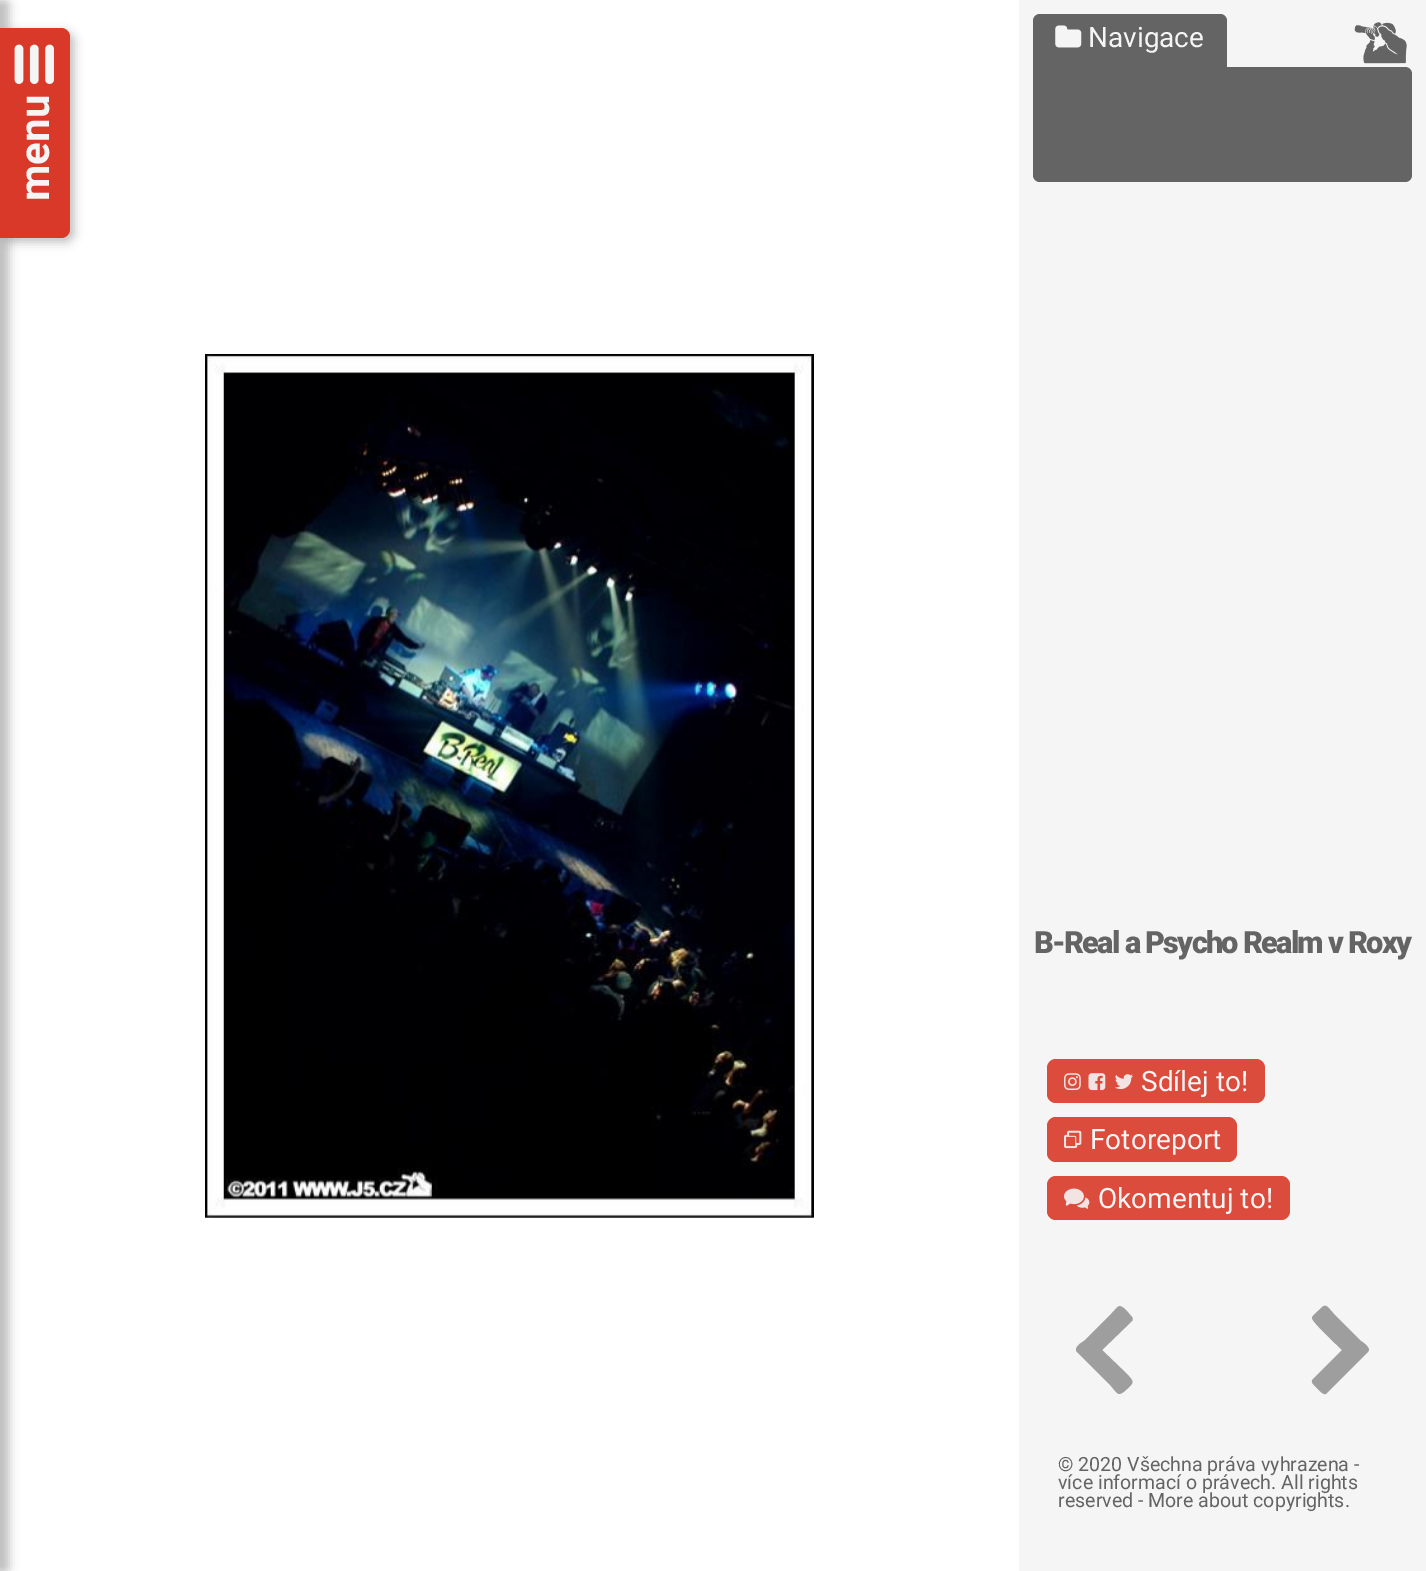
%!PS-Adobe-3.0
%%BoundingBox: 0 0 1426 1571
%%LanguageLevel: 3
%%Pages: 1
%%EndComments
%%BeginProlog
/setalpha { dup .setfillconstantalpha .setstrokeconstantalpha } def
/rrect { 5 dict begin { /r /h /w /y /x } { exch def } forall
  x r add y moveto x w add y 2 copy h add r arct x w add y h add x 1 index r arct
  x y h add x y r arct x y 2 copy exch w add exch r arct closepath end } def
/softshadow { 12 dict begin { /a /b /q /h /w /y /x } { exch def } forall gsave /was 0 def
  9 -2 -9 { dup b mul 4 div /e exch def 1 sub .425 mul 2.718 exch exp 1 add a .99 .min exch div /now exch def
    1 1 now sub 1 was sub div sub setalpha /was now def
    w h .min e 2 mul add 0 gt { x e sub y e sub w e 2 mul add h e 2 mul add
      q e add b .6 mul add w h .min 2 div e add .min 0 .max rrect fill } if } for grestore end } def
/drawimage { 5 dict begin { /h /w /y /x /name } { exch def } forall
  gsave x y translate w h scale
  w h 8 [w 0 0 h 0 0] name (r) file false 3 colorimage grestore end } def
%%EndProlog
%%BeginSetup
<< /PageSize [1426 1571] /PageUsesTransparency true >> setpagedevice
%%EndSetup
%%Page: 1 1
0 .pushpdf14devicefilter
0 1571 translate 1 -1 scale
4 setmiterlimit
1 setgray
0 0 1426 1571 rectfill
0 setgray
-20 0 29 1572 5 5 0.25 softshadow
4 32 70 210 9 5 0.25 softshadow
0.847 0.224 0.157 setrgbcolor
newpath 0 28 moveto 61 28 lineto 66 28 70 32 70 37 curveto 70 229 lineto 70 234 66 238 61 238 curveto 0 238 lineto closepath fill
(images/1.raw) 14 44 40 40 drawimage
(images/2.raw) 205 354 609 864 drawimage
0.961 setgray
1019 0 407 1571 rectfill
0.392 setgray
newpath 1040 14 moveto 1220 14 lineto 1224 14 1227 17 1227 21 curveto 1227 67 lineto 1033 67 lineto 1033 21 lineto 1033 17 1036 14 1040 14 curveto closepath fill
(images/3.raw) 1055 25 27 23 drawimage
(images/4.raw) 1354 22 53 42 drawimage
newpath 1033 67 moveto 1405 67 lineto 1409 67 1412 70 1412 74 curveto 1412 175 lineto 1412 179 1409 182 1405 182 curveto 1040 182 lineto 1036 182 1033 179 1033 175 curveto closepath fill
0.859 0.298 0.239 setrgbcolor
1047 1059 218 44 9 rrect fill
(images/5.raw) 1064 1073 17 18 drawimage
(images/6.raw) 1088 1073 18 18 drawimage
(images/7.raw) 1115 1074 18 16 drawimage
1047 1117 190 45 9 rrect fill
(images/8.raw) 1064 1130 18 19 drawimage
1047 1176 243 44 9 rrect fill
(images/9.raw) 1064 1188 26 21 drawimage
0.62 setgray
newpath 1132 1321 moveto 1102 1350 lineto 1127 1374 lineto 1135 1383 1134 1382 1126 1390 curveto 1118 1397 1118 1394 1111 1386 curveto 1076 1351 lineto 1076 1349 lineto 1077 1345 1081 1343 1084 1341 curveto 1111 1314 lineto 1119 1306 1118 1303 1126 1310 curveto 1132 1317 lineto 1133 1318 1133 1320 1132 1321 curveto closepath fill
newpath 1368 1352 moveto 1327 1393 lineto 1324 1397 1318 1389 1316 1387 curveto 1314 1385 1310 1382 1313 1379 curveto 1342 1350 lineto 1338 1346 1312 1322 1312 1318 curveto 1312 1316 1316 1313 1318 1311 curveto 1326 1303 1325 1304 1334 1314 curveto 1361 1341 lineto 1361 1341 1369 1346 1369 1350 curveto closepath fill
/Roboto-Bold [42 0 0 -42 0 0] selectfont
0.961 setgray
gsave 49 201 translate -90 rotate 0 0 moveto (menu) show grestore
/Roboto-Regular [28 0 0 -28 0 0] selectfont
1088 47 moveto (Navigace) show
/Roboto-Black [30.75 0 0 -30.75 0 0] selectfont
0.392 setgray
1034 953 moveto -1.75 0 (B-Real a Psycho Realm v Roxy) ashow
/Roboto-Regular [28 0 0 -28 0 0] selectfont
0.961 setgray
1141 1091 moveto (Sdílej to!) show
1090 1149 moveto (Fotoreport) show
1098 1208 moveto (Okomentuj to!) show
/Roboto-Regular [19.6 0 0 -19.6 0 0] selectfont
0.392 setgray
1058 1471 moveto (© 2020 Všechna práva vyhrazena -) show
1058 1489 moveto (více informací o právech. All rights) show
1058 1507 moveto (reserved - More about copyrights.) show
.poppdf14devicefilter showpage
%%EOF
